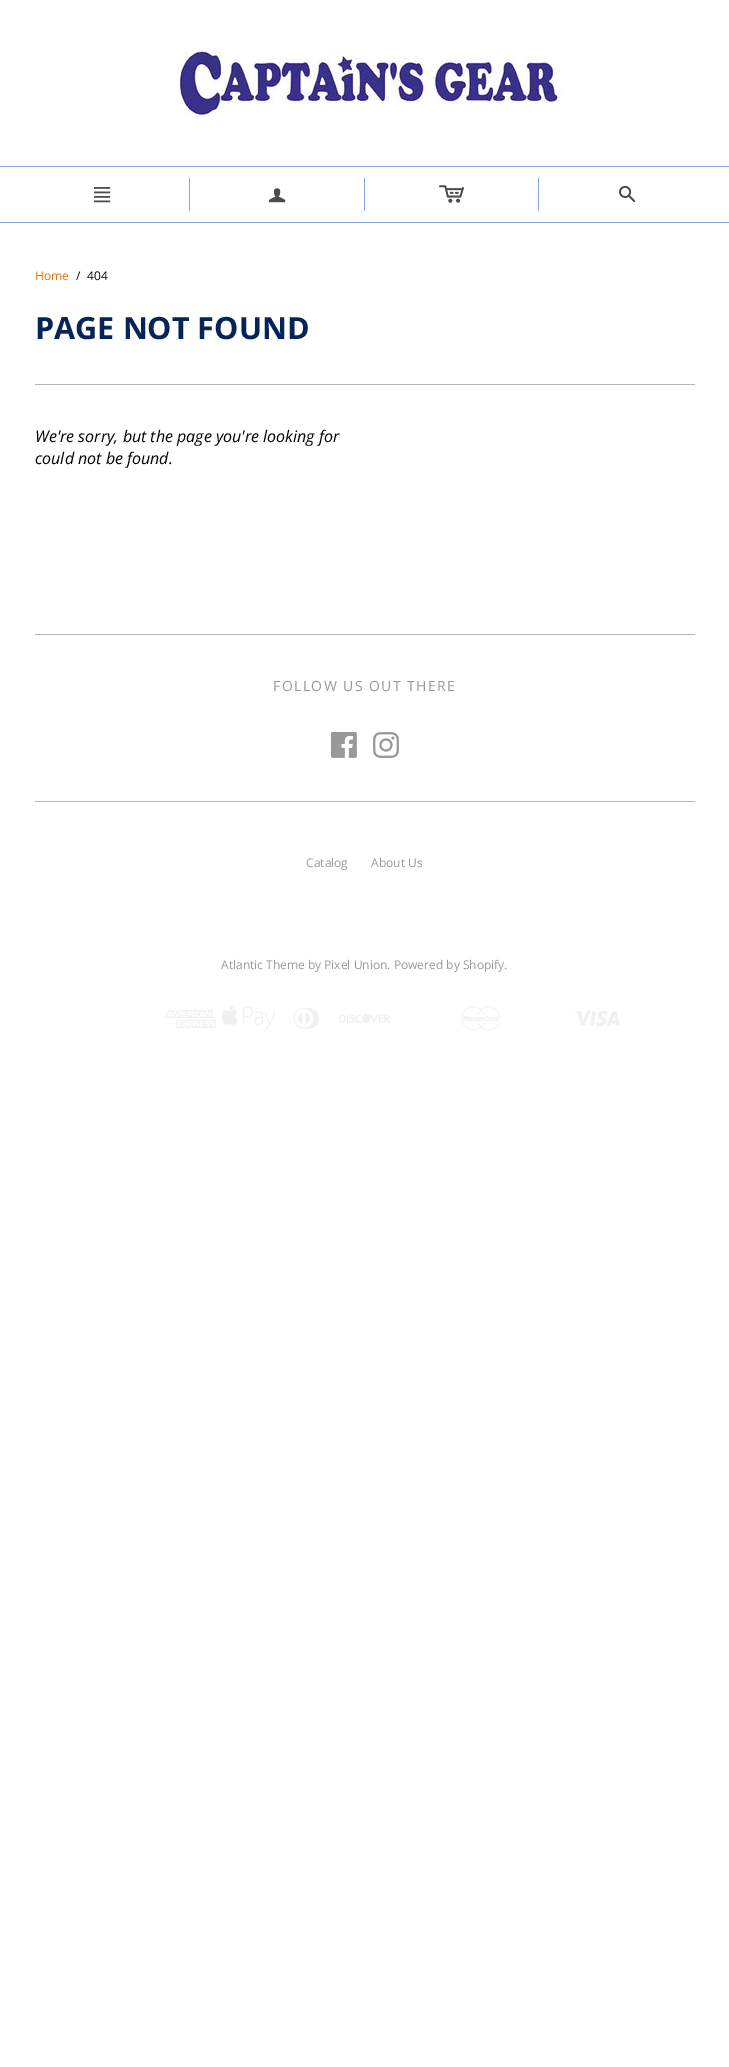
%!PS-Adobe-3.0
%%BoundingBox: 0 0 729 2067
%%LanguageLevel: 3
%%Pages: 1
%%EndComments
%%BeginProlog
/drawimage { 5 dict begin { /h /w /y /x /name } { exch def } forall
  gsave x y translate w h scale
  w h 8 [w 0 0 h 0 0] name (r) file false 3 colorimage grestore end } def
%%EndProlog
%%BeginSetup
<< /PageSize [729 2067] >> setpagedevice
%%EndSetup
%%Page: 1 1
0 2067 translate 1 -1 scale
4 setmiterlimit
1 setgray
0 0 729 2067 rectfill
(images/1.raw) 176 49 385 68 drawimage
0.522 0.651 0.882 setrgbcolor
0 166 729 1 rectfill
0 222 729 1 rectfill
(images/2.raw) 94 187 17 16 drawimage
189 178 1 33 rectfill
(images/3.raw) 269 188 17 15 drawimage
364 178 1 33 rectfill
(images/4.raw) 439 185 25 18 drawimage
538 178 1 33 rectfill
(images/5.raw) 619 185 17 18 drawimage
0.714 setgray
35 384 660 1 rectfill
35 634 660 1 rectfill
35 801 660 1 rectfill
(images/6.raw) 331 732 26 26 drawimage
(images/7.raw) 373 732 26 26 drawimage
(images/8.raw) 165 1010 52 18 drawimage
(images/9.raw) 221 1005 54 26 drawimage
(images/10.raw) 293 1008 27 21 drawimage
(images/11.raw) 339 1014 51 9 drawimage
(images/12.raw) 461 1006 40 25 drawimage
(images/13.raw) 574 1011 46 15 drawimage
/OpenSans-Regular [12 0 0 -12 0 0] selectfont
0.906 0.463 0.039 setrgbcolor
35 280 moveto (Home) show
0 setgray
76 280 moveto (/) show
87 280 moveto (404) show
/OpenSans-Bold [30.6 0 0 -30.6 0 0] selectfont
0.027 0.141 0.345 setrgbcolor
35 339 moveto (PAGE NOT FOUND) show
/OpenSans-Italic [16 0 0 -16 0 0] selectfont
0 setgray
35 442 moveto (We're sorry, but the page you're looking for) show
35 464 moveto (could not be found.) show
/OpenSans-Regular [14 0 0 -14 0 0] selectfont
0.6 setgray
273 691 moveto 1.4 0 (FOLLOW US OUT THERE) ashow
/OpenSans-Regular [12 0 0 -12 0 0] selectfont
306 867 moveto (Catalog) show
371 867 moveto (About Us) show
221 969 moveto (Atlantic Theme by Pixel Union. Powered by Shopify.) show
showpage
%%EOF
